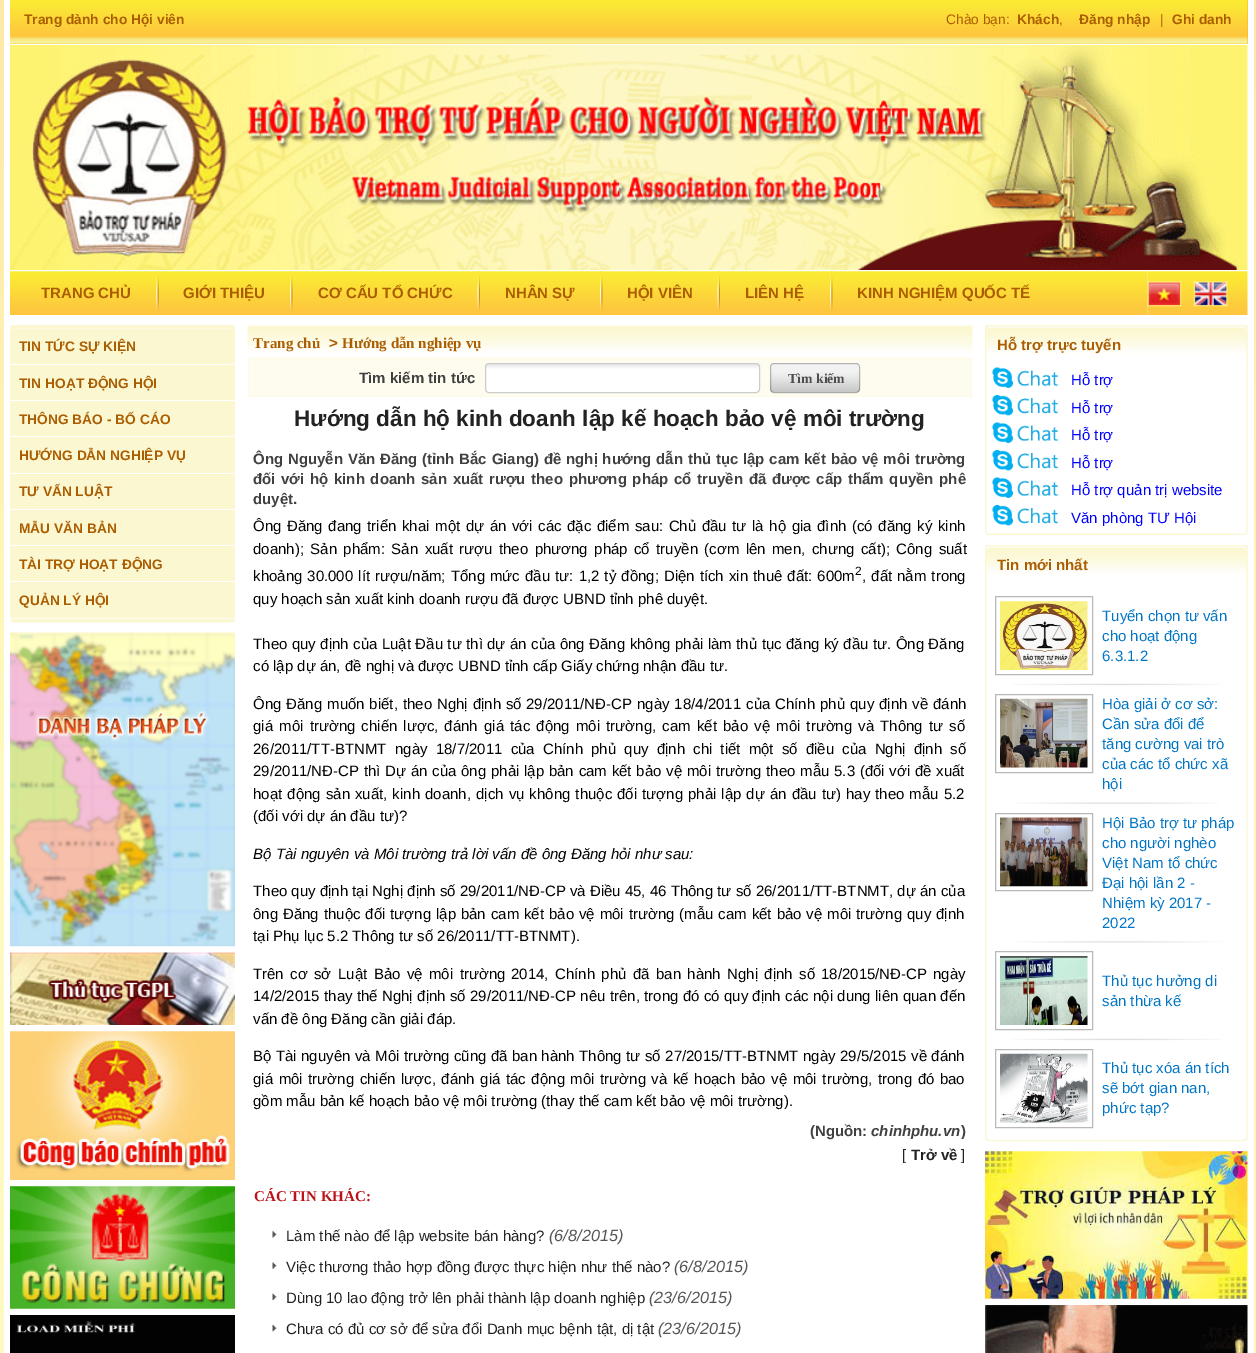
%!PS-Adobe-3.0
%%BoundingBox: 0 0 1256 1353
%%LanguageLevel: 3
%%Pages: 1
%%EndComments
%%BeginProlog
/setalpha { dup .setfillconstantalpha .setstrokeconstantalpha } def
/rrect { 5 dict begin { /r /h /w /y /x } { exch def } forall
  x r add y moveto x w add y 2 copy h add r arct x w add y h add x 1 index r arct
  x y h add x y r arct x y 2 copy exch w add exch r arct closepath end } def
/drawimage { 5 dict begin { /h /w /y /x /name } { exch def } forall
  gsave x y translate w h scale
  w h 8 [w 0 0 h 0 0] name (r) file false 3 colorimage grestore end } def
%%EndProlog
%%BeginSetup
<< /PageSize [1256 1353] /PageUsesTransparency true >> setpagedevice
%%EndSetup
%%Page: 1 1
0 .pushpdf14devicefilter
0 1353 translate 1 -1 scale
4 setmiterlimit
0.996 0.976 0.757 setrgbcolor
0 0 1256 1353 rectfill
(images/1.raw) 0 0 1256 748 drawimage
1 setgray
4 0 1250 1353 rectfill
1 0.714 0.071 setrgbcolor
10 0 1238 44 rectfill
(images/2.raw) 10 0 445 44 drawimage
(images/3.raw) 455 0 793 44 drawimage
(images/4.raw) 10 45 1238 225 drawimage
(images/5.raw) 10 271 1138 44 drawimage
(images/6.raw) 156 271 3 41 drawimage
(images/7.raw) 290 271 3 41 drawimage
(images/8.raw) 477 271 3 41 drawimage
(images/7.raw) 600 271 3 41 drawimage
(images/8.raw) 717 271 3 41 drawimage
(images/7.raw) 830 271 3 41 drawimage
(images/9.raw) 1147 271 101 44 drawimage
(images/10.raw) 1147 281 35 26 drawimage
(images/11.raw) 1193 281 35 26 drawimage
(images/12.raw) 10 325 225 4 drawimage
0.984 0.969 0.82 setrgbcolor
10 329 225 35 rectfill
10 365 225 35 rectfill
10 401 225 72 rectfill
1 setgray
10 436 225 1 rectfill
0.984 0.969 0.82 setrgbcolor
10 474 225 35 rectfill
10 510 225 35 rectfill
10 546 225 72 rectfill
1 setgray
10 581 225 1 rectfill
(images/13.raw) 10 618 225 5 drawimage
(images/14.raw) 10 632 225 315 drawimage
(images/15.raw) 10 952 225 73 drawimage
(images/16.raw) 10 1031 225 149 drawimage
(images/17.raw) 10 1186 225 123 drawimage
(images/18.raw) 10 1315 225 38 drawimage
(images/19.raw) 247 325 726 34 drawimage
0.996 0.988 0.937 setrgbcolor
249 359 722 37 rectfill
0.992 0.984 0.906 setrgbcolor
971 359 1 39 rectfill
248 396 725 1 rectfill
248 359 1 39 rectfill
(images/20.raw) 485 363 275 30 drawimage
0.8 setgray
485.5 363.5 274 29 3.5 rrect stroke
0.933 setgray
770 363 90 30 4 rrect fill
(images/21.raw) 770 364 90 29 drawimage
0.25 setalpha
0 setgray
770.5 363.5 89 29 3.5 rrect stroke
1 setalpha
(images/22.raw) 272 1231 5 7 drawimage
(images/23.raw) 272 1262 5 7 drawimage
(images/24.raw) 272 1293 5 7 drawimage
(images/25.raw) 272 1325 5 7 drawimage
(images/26.raw) 985 325 263 207 drawimage
(images/27.raw) 985 325 263 39 drawimage
(images/28.raw) 992 367 66 21 drawimage
(images/29.raw) 992 395 66 21 drawimage
(images/28.raw) 992 422 66 21 drawimage
(images/29.raw) 992 450 66 21 drawimage
(images/28.raw) 992 477 66 21 drawimage
(images/29.raw) 992 505 66 21 drawimage
(images/30.raw) 985 531 263 4 drawimage
(images/31.raw) 985 545 263 593 drawimage
(images/27.raw) 985 545 263 39 drawimage
0.722 setgray
995.5 596.5 97 78 rectstroke
(images/32.raw) 1000 601 88 69 drawimage
(images/33.raw) 1012 683 209 3 drawimage
995.5 694.5 97 78 rectstroke
(images/34.raw) 1000 698 88 70 drawimage
(images/35.raw) 1016 802 203 2 drawimage
995.5 813.5 97 77 rectstroke
(images/36.raw) 1000 817 88 70 drawimage
(images/37.raw) 1013 941 208 2 drawimage
995.5 951.5 97 78 rectstroke
(images/38.raw) 1000 956 88 69 drawimage
(images/33.raw) 1012 1038 209 3 drawimage
995.5 1049.5 97 78 rectstroke
(images/39.raw) 1000 1053 88 70 drawimage
(images/40.raw) 985 1137 263 5 drawimage
(images/41.raw) 985 1151 263 148 drawimage
(images/42.raw) 985 1305 263 48 drawimage
/LiberationSans-Bold [13.75 0 0 -13.75 0 0] selectfont
0.671 0.365 0.004 setrgbcolor
24 24 moveto (Trang dành cho Hội viên) show
/LiberationSans-Regular [13.75 0 0 -13.75 0 0] selectfont
946 24 moveto (Chào bạn:) show
/LiberationSans-Bold [13.75 0 0 -13.75 0 0] selectfont
1017 24 moveto (Khách) show
/LiberationSans-Regular [13.75 0 0 -13.75 0 0] selectfont
1059 24 moveto (,) show
/LiberationSans-Bold [13.75 0 0 -13.75 0 0] selectfont
1079 24 moveto (Đăng nhập) show
/LiberationSans-Regular [13.75 0 0 -13.75 0 0] selectfont
1160 24 moveto (|) show
/LiberationSans-Bold [13.75 0 0 -13.75 0 0] selectfont
1172 24 moveto (Ghi danh) show
/LiberationSans-Bold [15 0 0 -15 0 0] selectfont
41 298 moveto (TRANG CHỦ) show
183 298 moveto (GIỚI THIỆU) show
318 298 moveto (CƠ CẤU TỔ CHỨC) show
505 298 moveto (NHÂN SỰ) show
627 298 moveto (HỘI VIÊN) show
745 298 moveto (LIÊN HỆ) show
857 298 moveto (KINH NGHIỆM QUỐC TẾ) show
/LiberationSans-Bold [13.75 0 0 -13.75 0 0] selectfont
19 351 moveto (TIN TỨC SỰ KIỆN) show
19 388 moveto (TIN HOẠT ĐỘNG HỘI) show
19 424 moveto (THÔNG BÁO - BỐ CÁO) show
19 460 moveto (HƯỚNG DẪN NGHIỆP VỤ) show
19 496 moveto (TƯ VẤN LUẬT) show
19 533 moveto (MẪU VĂN BẢN) show
19 569 moveto (TÀI TRỢ HOẠT ĐỘNG) show
19 605 moveto (QUẢN LÝ HỘI) show
/LiberationSerif-Bold [15 0 0 -15 0 0] selectfont
253 348 moveto (Trang chủ) show
/LiberationSans-Bold [15 0 0 -15 0 0] selectfont
329 348 moveto (>) show
/LiberationSerif-Bold [15 0 0 -15 0 0] selectfont
342 348 moveto (Hướng dẫn nghiệp vụ) show
/LiberationSans-Bold [15 0 0 -15 0 0] selectfont
0.251 setgray
359 383 moveto (Tìm kiếm tin tức) show
/LiberationSerif-Bold [13.75 0 0 -13.75 0 0] selectfont
0.302 setgray
788 383 moveto (Tìm kiếm) show
/LiberationSans-Bold [22.5 0 0 -22.5 0 0] selectfont
0.133 setgray
294 426 moveto (Hướng dẫn hộ kinh doanh lập kế hoạch bảo vệ môi trường) show
/LiberationSans-Bold [15 0 0 -15 0 0] selectfont
0.251 setgray
253 464 moveto 0.6 0 32 (Ông Nguyễn Văn Đăng \(tỉnh Bắc Giang\) đề nghị hướng dẫn thủ tục lập cam kết bảo vệ môi trường) widthshow
253 484 moveto 1.5 0 32 (đối với hộ kinh doanh sản xuất rượu theo phương pháp cổ truyền đã được cấp thẩm quyền phê) widthshow
253 504 moveto (duyệt.) show
/LiberationSans-Regular [15 0 0 -15 0 0] selectfont
0 setgray
253 531 moveto 1.4 0 32 (Ông Đăng đang triển khai một dự án với các đặc điểm sau: Chủ đầu tư là hộ gia đình \(có đăng ký kinh) widthshow
253 554 moveto 2.25 0 32 (doanh\); Sản phẩm: Sản xuất rượu theo phương pháp cổ truyền \(cơm lên men, chưng cất\); Công suất) widthshow
253 581 moveto 0.9 0 32 (khoảng 30.000 lít rượu/năm; Tổng mức đầu tư: 1,2 tỷ đồng; Diện tích xin thuê đất: 600m) widthshow
/LiberationSans-Regular [12 0 0 -12 0 0] selectfont
855 575 moveto (2) show
/LiberationSans-Regular [15 0 0 -15 0 0] selectfont
862 581 moveto 0.9 0 32 (, đất nằm trong) widthshow
253 604 moveto (quy hoạch sản xuất kinh doanh rượu đã được UBND tỉnh phê duyệt.) show
253 649 moveto 0.3 0 32 (Theo quy định của Luật Đầu tư thì dự án của ông Đăng không phải làm thủ tục đăng ký đầu tư. Ông Đăng) widthshow
253 671 moveto (có lập dự án, đề nghị và được UBND tỉnh cấp Giấy chứng nhận đầu tư.) show
253 709 moveto 0.75 0 32 (Ông Đăng muốn biết, theo Nghị định số) widthshow
526 709 moveto (29/2011/NĐ-CP) show
637 709 moveto 0.75 0 32 (ngày 18/4/2011 của Chính phủ quy định về đánh) widthshow
253 731 moveto 2 0 32 (giá môi trường chiến lược, đánh giá tác động môi trường, cam kết bảo vệ môi trường và Thông tư số) widthshow
253 754 moveto (26/2011/TT-BTNMT) show
395 754 moveto 4 0 32 (ngày 18/7/2011 của Chính phủ quy định chi tiết một số điều của Nghị định số) widthshow
253 776 moveto 0.6 0 32 (29/2011/NĐ-CP thì Dự án của ông phải lập bản cam kết bảo vệ môi trường theo mẫu 5.3 \(đối với đề xuất) widthshow
253 799 moveto 0.9 0 32 (hoạt động sản xuất, kinh doanh, dịch vụ không thuộc đối tượng phải lập dự án đầu tư\) hay theo mẫu 5.2) widthshow
253 821 moveto (\(đối với dự án đầu tư\)?) show
/LiberationSans-Italic [15 0 0 -15 0 0] selectfont
253 859 moveto (Bộ Tài nguyên và Môi trường trả lời vấn đề ông Đăng hỏi như sau:) show
/LiberationSans-Regular [15 0 0 -15 0 0] selectfont
253 896 moveto (Theo quy định tại Nghị định số 29/2011/NĐ-CP và Điều 45, 46 Thông tư số 26/2011/TT-BTNMT, dự án của) show
253 919 moveto 0.75 0 32 (ông Đăng thuộc đối tượng lập bản cam kết bảo vệ môi trường \(mẫu cam kết bảo vệ môi trường quy định) widthshow
253 941 moveto (tại Phụ lục 5.2 Thông tư số 26/2011/TT-BTNMT\).) show
253 979 moveto 2.25 0 32 (Trên cơ sở) widthshow
338 979 moveto 2.25 0 32 (Luật Bảo vệ môi trường) widthshow
511 979 moveto 2.25 0 32 (2014, Chính phủ đã ban hành Nghị định số) widthshow
821 979 moveto (18/2015/NĐ-CP) show
933 979 moveto (ngày) show
253 1001 moveto 0.2 0 32 (14/2/2015 thay thế Nghị định số 29/2011/NĐ-CP nêu trên, trong đó có quy định các nội dung liên quan đến) widthshow
253 1024 moveto (vấn đề ông Đăng cần giải đáp.) show
253 1061 moveto 0.3 0 32 (Bộ Tài nguyên và Môi trường cũng đã ban hành Thông tư số 27/2015/TT-BTNMT ngày 29/5/2015 về đánh) widthshow
253 1084 moveto 1.4 0 32 (giá môi trường chiến lược, đánh giá tác động môi trường và kế hoạch bảo vệ môi trường, trong đó bao) widthshow
253 1106 moveto (gồm mẫu bản kế hoạch bảo vệ môi trường \(thay thế cam kết bảo vệ môi trường\).) show
/LiberationSans-Bold [15 0 0 -15 0 0] selectfont
0.251 setgray
810 1136 moveto (\(Nguồn:) show
/LiberationSans-BoldItalic [15 0 0 -15 0 0] selectfont
871 1136 moveto (chinhphu.vn) show
/LiberationSans-Bold [15 0 0 -15 0 0] selectfont
961 1136 moveto (\)) show
/LiberationSans-Regular [15 0 0 -15 0 0] selectfont
0.133 setgray
902 1160 moveto ([) show
/LiberationSans-Bold [15 0 0 -15 0 0] selectfont
911 1160 moveto (Trở về) show
/LiberationSans-Regular [15 0 0 -15 0 0] selectfont
961 1160 moveto (]) show
/LiberationSerif-Bold [15 0 0 -15 0 0] selectfont
0.733 0.078 0.102 setrgbcolor
254 1201 moveto (CÁC TIN KHÁC:) show
/LiberationSans-Regular [15 0 0 -15 0 0] selectfont
0.133 setgray
286 1241 moveto (Làm thế nào để lập website bán hàng?) show
/LiberationSans-Italic [16.25 0 0 -16.25 0 0] selectfont
0.333 setgray
549 1241 moveto (\(6/8/2015\)) show
/LiberationSans-Regular [15 0 0 -15 0 0] selectfont
0.133 setgray
286 1272 moveto (Việc thương thảo hợp đồng được thực hiện như thế nào?) show
/LiberationSans-Italic [16.25 0 0 -16.25 0 0] selectfont
0.333 setgray
674 1272 moveto (\(6/8/2015\)) show
/LiberationSans-Regular [15 0 0 -15 0 0] selectfont
0.133 setgray
286 1303 moveto (Dùng 10 lao động trở lên phải thành lập doanh nghiệp) show
/LiberationSans-Italic [16.25 0 0 -16.25 0 0] selectfont
0.333 setgray
649 1303 moveto (\(23/6/2015\)) show
/LiberationSans-Regular [15 0 0 -15 0 0] selectfont
0.133 setgray
286 1334 moveto (Chưa có đủ cơ sở để sửa đổi Danh mục bệnh tật, dị tật) show
/LiberationSans-Italic [16.25 0 0 -16.25 0 0] selectfont
0.333 setgray
658 1334 moveto (\(23/6/2015\)) show
/LiberationSans-Bold [15 0 0 -15 0 0] selectfont
0.671 0.365 0.004 setrgbcolor
997 350 moveto (Hỗ trợ trực tuyến) show
/LiberationSans-Regular [15 0 0 -15 0 0] selectfont
0 0 1 setrgbcolor
1071 385 moveto (Hỗ trợ) show
1071 413 moveto (Hỗ trợ) show
1071 440 moveto (Hỗ trợ) show
1071 468 moveto (Hỗ trợ) show
1071 495 moveto (Hỗ trợ quản trị website) show
1071 523 moveto (Văn phòng TƯ Hội) show
/LiberationSans-Bold [15 0 0 -15 0 0] selectfont
0.671 0.365 0.004 setrgbcolor
997 570 moveto (Tin mới nhất) show
/LiberationSans-Regular [15 0 0 -15 0 0] selectfont
0.008 0.463 0.773 setrgbcolor
1102 621 moveto (Tuyển chọn tư vấn) show
1102 641 moveto (cho hoạt động) show
1102 661 moveto (6.3.1.2) show
1102 709 moveto (Hòa giải ở cơ sở:) show
1102 729 moveto (Cần sửa đổi để) show
1102 749 moveto (tăng cường vai trò) show
1102 769 moveto (của các tổ chức xã) show
1102 789 moveto (hội) show
1102 828 moveto (Hội Bảo trợ tư pháp) show
1102 848 moveto (cho người nghèo) show
1102 868 moveto (Việt Nam tổ chức) show
1102 888 moveto (Đại hội lần 2 -) show
1102 908 moveto (Nhiệm kỳ 2017 -) show
1102 928 moveto (2022) show
1102 986 moveto (Thủ tục hưởng di) show
1102 1006 moveto (sản thừa kế) show
1102 1073 moveto (Thủ tục xóa án tích) show
1102 1093 moveto (sẽ bớt gian nan,) show
1102 1113 moveto (phức tạp?) show
.poppdf14devicefilter showpage
%%EOF
